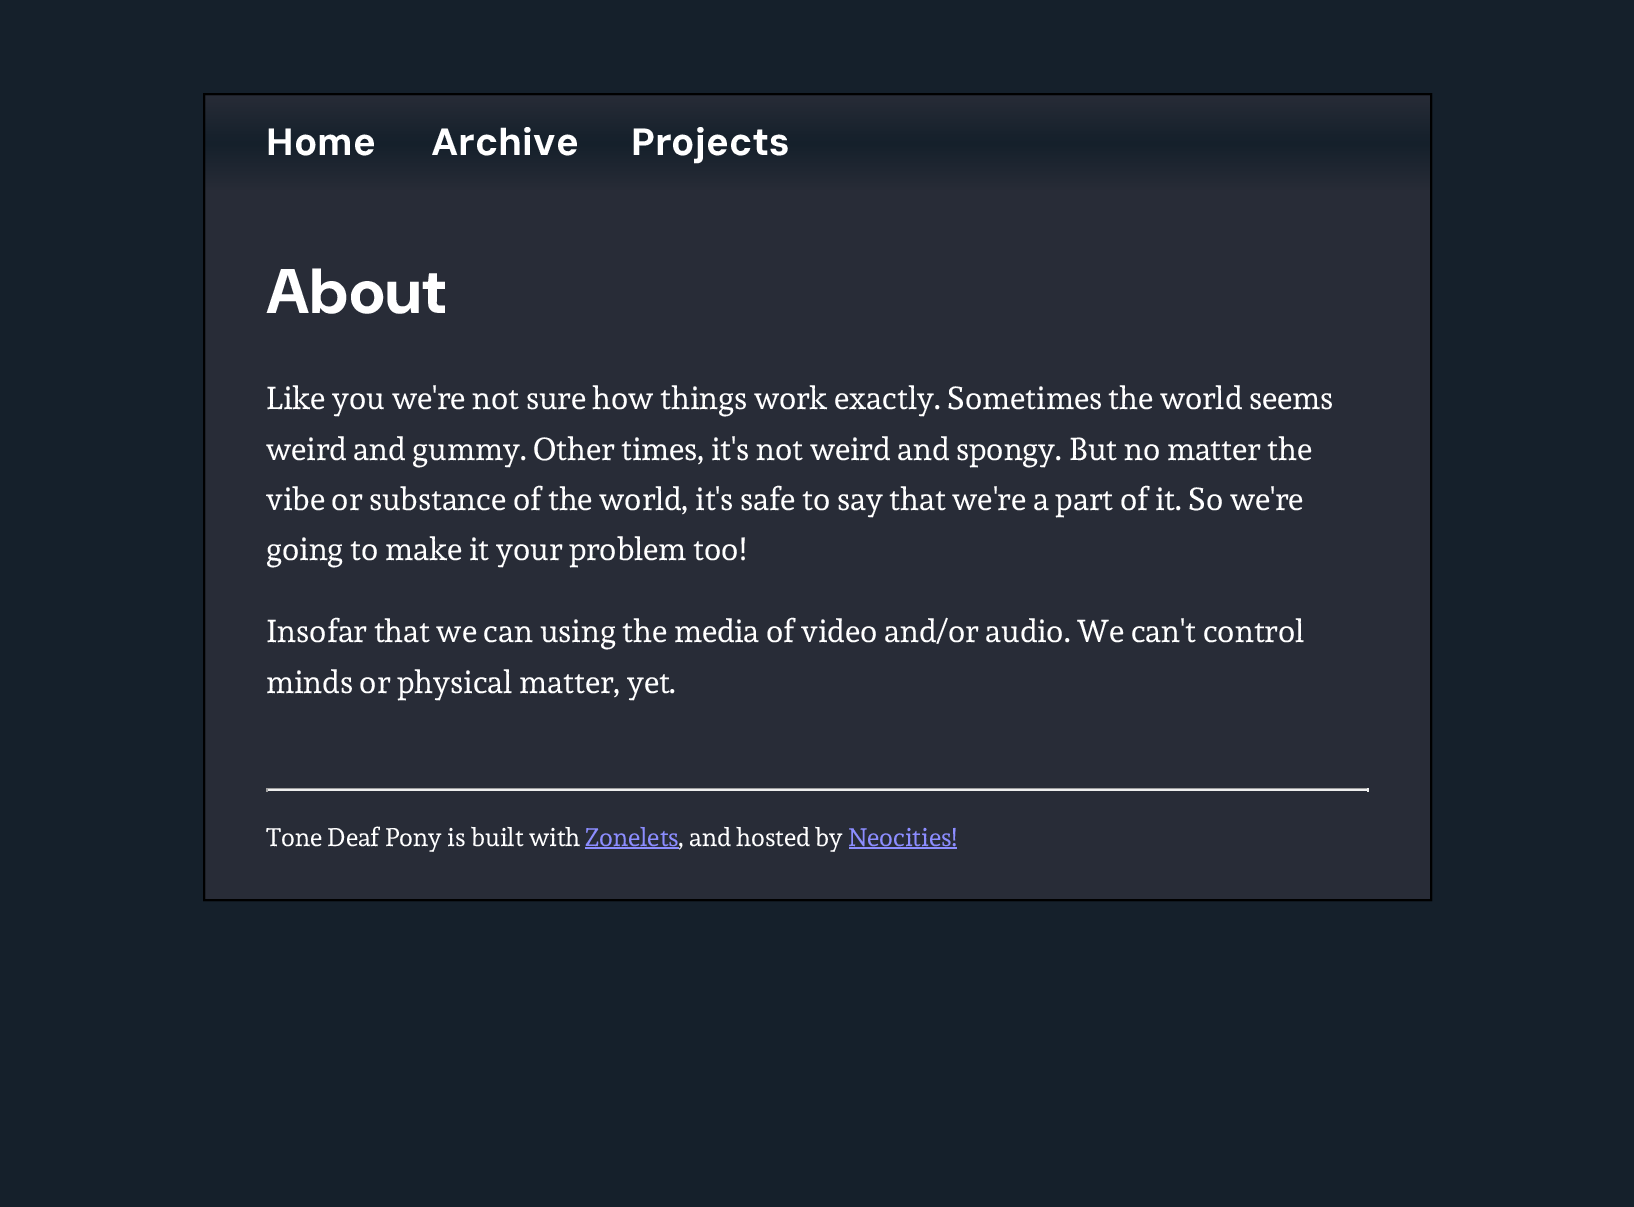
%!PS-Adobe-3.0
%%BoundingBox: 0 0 1634 1207
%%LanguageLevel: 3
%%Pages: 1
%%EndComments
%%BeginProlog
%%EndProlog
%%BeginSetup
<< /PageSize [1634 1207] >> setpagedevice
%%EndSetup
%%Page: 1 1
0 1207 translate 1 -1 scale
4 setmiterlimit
0.082 0.125 0.169 setrgbcolor
0 0 1634 1207 rectfill
0.157 0.173 0.216 setrgbcolor
205 191 1225 708 rectfill
gsave newpath 205 95 moveto 1430 95 lineto 1430 191 lineto 205 191 lineto closepath clip newpath
<< /ShadingType 2 /ColorSpace /DeviceRGB /Coords [817 94 817 191] /Extend [true true] /Function << /FunctionType 3 /Domain [0 1] /Functions [<< /FunctionType 2 /Domain [0 1] /C0 [0.157 0.173 0.216] /C1 [0.082 0.125 0.169] /N 1 >> << /FunctionType 2 /Domain [0 1] /C0 [0.082 0.125 0.169] /C1 [0.157 0.173 0.216] /N 1 >>] /Bounds [0.5] /Encode [0 1 0 1] >> >> shfill grestore
0.549 0.553 1 setrgbcolor
585 847 94 2 rectfill
849 847 108 2 rectfill
0 setgray
2 setlinewidth
204 94 1227 806 rectstroke
0.624 setgray
266 788 1103 1 rectfill
0.933 setgray
1367 788 2 4 rectfill
266 789 1103 2 rectfill
0.624 setgray
266 788 2 4 rectfill
/DMSans-ExtraBold [38 0 0 -38 0 0] selectfont
1 setgray
266 155 moveto (Home) show
431 155 moveto (Archive) show
631 155 moveto (Projects) show
/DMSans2-ExtraBold [63 0 0 -63 0 0] selectfont
266 313 moveto (About) show
/Sura-Regular [31.5 0 0 -31.5 0 0] selectfont
266 409 moveto (Like you we're not sure how things work exactly. Sometimes the world seems) show
266 460 moveto (weird and gummy. Other times, it's not weird and spongy. But no matter the) show
266 510 moveto (vibe or substance of the world, it's safe to say that we're a part of it. So we're) show
266 560 moveto (going to make it your problem too!) show
266 642 moveto (Insofar that we can using the media of video and/or audio. We can't control) show
266 693 moveto (minds or physical matter, yet.) show
/Sura-Regular [25.25 0 0 -25.25 0 0] selectfont
266 846 moveto (Tone Deaf Pony is built with) show
0.549 0.553 1 setrgbcolor
585 846 moveto (Zonelets) show
1 setgray
678 846 moveto (, and hosted by) show
0.549 0.553 1 setrgbcolor
848 846 moveto (Neocities!) show
showpage
%%EOF
